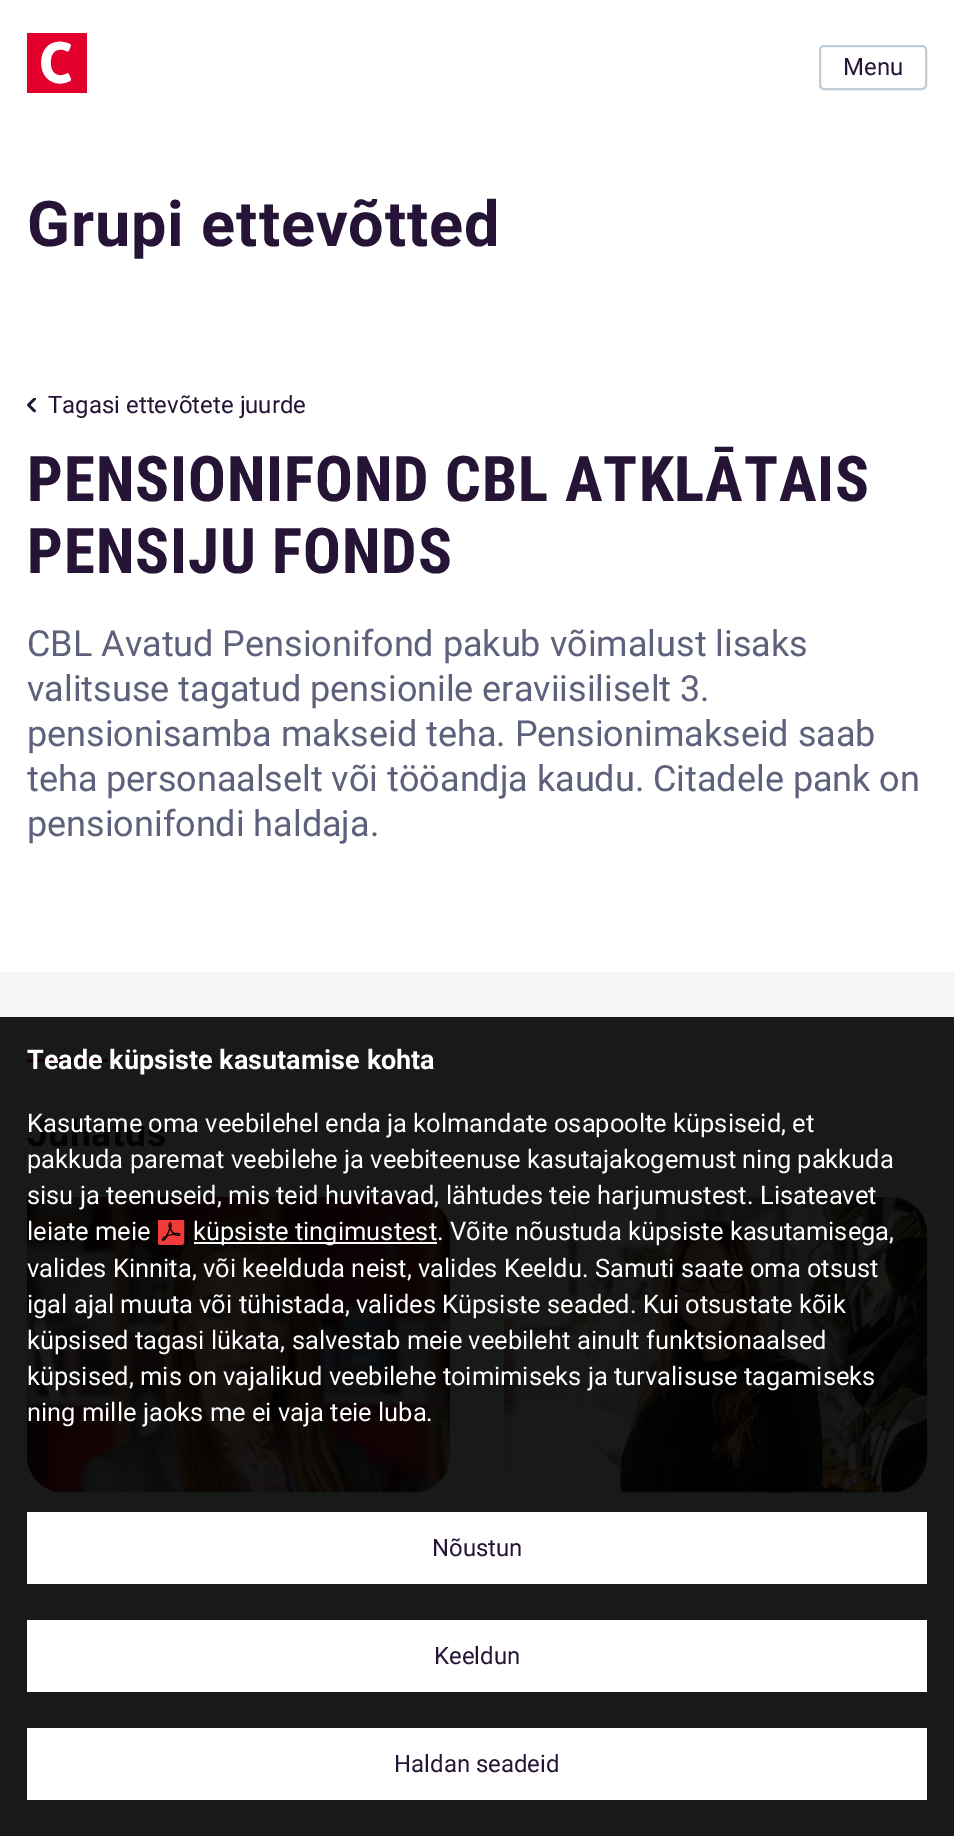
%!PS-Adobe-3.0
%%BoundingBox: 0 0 954 1836
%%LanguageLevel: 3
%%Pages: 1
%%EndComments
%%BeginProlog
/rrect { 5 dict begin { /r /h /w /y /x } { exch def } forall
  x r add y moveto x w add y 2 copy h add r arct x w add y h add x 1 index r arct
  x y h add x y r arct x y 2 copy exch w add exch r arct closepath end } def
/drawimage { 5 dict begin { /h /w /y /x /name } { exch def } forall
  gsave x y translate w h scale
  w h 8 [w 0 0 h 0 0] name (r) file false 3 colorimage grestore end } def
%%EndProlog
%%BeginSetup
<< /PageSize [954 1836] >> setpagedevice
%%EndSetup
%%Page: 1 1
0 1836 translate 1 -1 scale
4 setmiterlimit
1 setgray
0 0 954 1836 rectfill
0.098 setgray
0 1682 954 154 rectfill
(images/1.raw) 27 33 60 60 drawimage
0.757 0.804 0.843 setrgbcolor
2 setlinewidth
820 46 106 43 4 rrect stroke
(images/2.raw) 27 398 9 15 drawimage
0.957 0.965 0.973 setrgbcolor
0 972 954 45 rectfill
0.094 0.098 0.098 setrgbcolor
0 1017 954 665 rectfill
0.09 0 0.016 setrgbcolor
27 1059 81 3 rectfill
(images/3.raw) 27 1197 423 296 drawimage
(images/4.raw) 504 1197 423 296 drawimage
(images/5.raw) 158 1220 27 25 drawimage
1 setgray
194 1242 243 2 rectfill
27 1512 900 72 rectfill
27 1620 900 72 rectfill
27 1728 900 72 rectfill
/Roboto-Regular [24 0 0 -24 0 0] selectfont
0.145 0.078 0.208 setrgbcolor
843 75 moveto (Menu) show
/Roboto-Bold [63 0 0 -63 0 0] selectfont
27 246 moveto 0.9 0 (Grupi ettevõtted) ashow
/Roboto-Regular [24 0 0 -24 0 0] selectfont
48 413 moveto (Tagasi ettevõtete juurde) show
/RobotoCondensed-Bold [63 0 0 -63 0 0] selectfont
27 501 moveto 0.9 0 (PENSIONIFOND CBL ATKLĀTAIS) ashow
27 573 moveto 0.9 0 (PENSIJU FONDS) ashow
/Roboto-Regular [36 0 0 -36 0 0] selectfont
0.365 0.38 0.482 setrgbcolor
27 656 moveto (CBL Avatud Pensionifond pakub võimalust lisaks) show
27 701 moveto (valitsuse tagatud pensionile eraviisiliselt 3.) show
27 746 moveto (pensionisamba makseid teha. Pensionimakseid saab) show
27 791 moveto (teha personaalselt või tööandja kaudu. Citadele pank on) show
27 836 moveto (pensionifondi haldaja.) show
/Roboto-Bold [37.5 0 0 -37.5 0 0] selectfont
0.016 0.008 0.02 setrgbcolor
27 1146 moveto 0.5 0 (Juhatus) ashow
/Roboto-Bold [27 0 0 -27 0 0] selectfont
1 setgray
27 1069 moveto (Teade küpsiste kasutamise kohta) show
/Roboto-Regular [25.5 0 0 -25.5 0 0] selectfont
27 1132 moveto (Kasutame oma veebilehel enda ja kolmandate osapoolte küpsiseid, et) show
27 1168 moveto (pakkuda paremat veebilehe ja veebiteenuse kasutajakogemust ning pakkuda) show
27 1204 moveto (sisu ja teenuseid, mis teid huvitavad, lähtudes teie harjumustest. Lisateavet) show
27 1240 moveto (leiate meie) show
193 1240 moveto (küpsiste tingimustest. Võite nõustuda küpsiste kasutamisega,) show
27 1277 moveto (valides Kinnita, või keelduda neist, valides Keeldu. Samuti saate oma otsust) show
27 1313 moveto (igal ajal muuta või tühistada, valides Küpsiste seaded. Kui otsustate kõik) show
27 1349 moveto (küpsised tagasi lükata, salvestab meie veebileht ainult funktsionaalsed) show
27 1385 moveto (küpsised, mis on vajalikud veebilehe toimimiseks ja turvalisuse tagamiseks) show
27 1421 moveto (ning mille jaoks me ei vaja teie luba.) show
/Roboto-Regular [24 0 0 -24 0 0] selectfont
0.145 0.078 0.208 setrgbcolor
432 1556 moveto (Nõustun) show
434 1664 moveto (Keeldun) show
394 1772 moveto (Haldan seadeid) show
showpage
%%EOF
